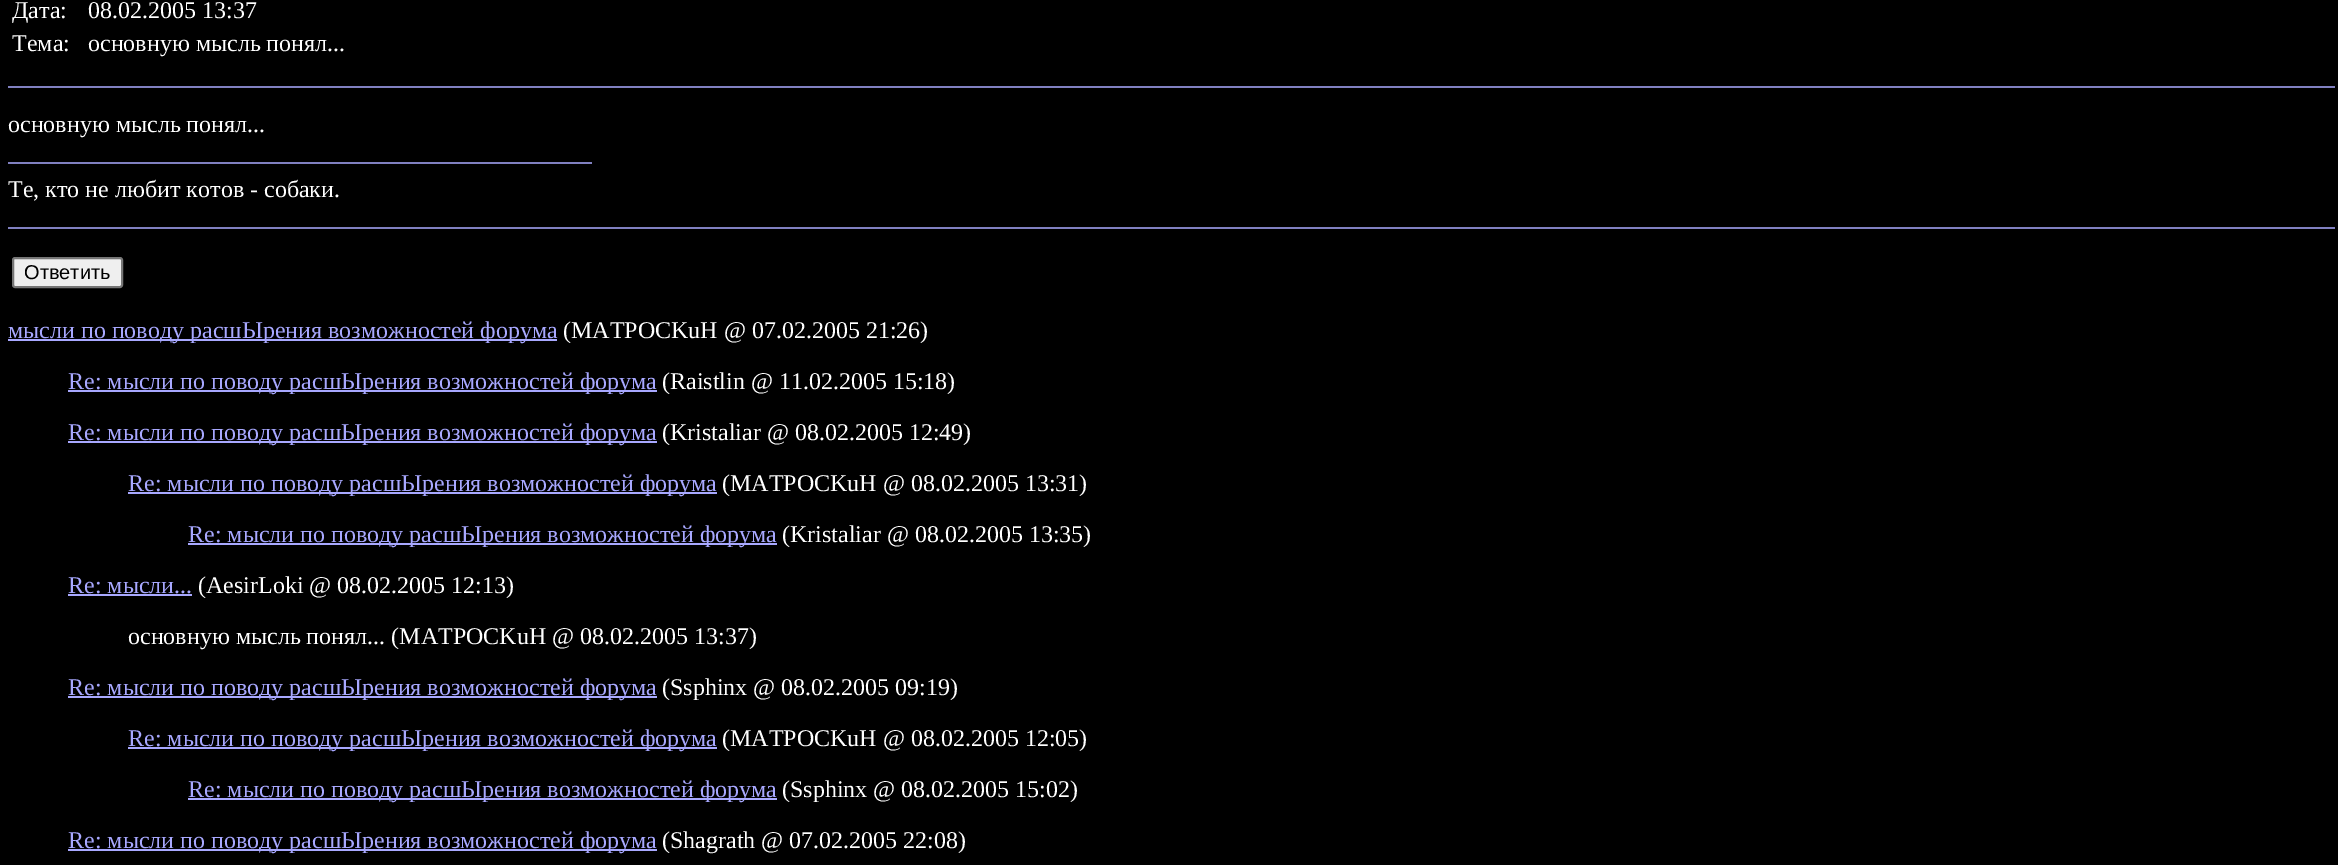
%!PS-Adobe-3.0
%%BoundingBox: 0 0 2338 865
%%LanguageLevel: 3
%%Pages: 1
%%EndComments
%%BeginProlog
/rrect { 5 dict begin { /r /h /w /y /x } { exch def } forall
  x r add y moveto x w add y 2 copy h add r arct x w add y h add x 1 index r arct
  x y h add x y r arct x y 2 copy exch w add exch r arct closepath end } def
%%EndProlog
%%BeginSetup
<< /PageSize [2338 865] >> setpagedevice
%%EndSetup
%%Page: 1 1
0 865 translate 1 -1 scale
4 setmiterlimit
0 setgray
0 0 2338 865 rectfill
0.502 0.502 0.753 setrgbcolor
8 86 2327 2 rectfill
8 162 584 2 rectfill
8 227 2327 2 rectfill
0.937 setgray
13 258 109 29 2 rrect gsave fill grestore
0.463 setgray
2 setlinewidth
stroke
0.659 0.659 1 setrgbcolor
8 339 549 2 rectfill
68 390 589 2 rectfill
68 441 589 2 rectfill
128 492 589 2 rectfill
188 543 589 2 rectfill
68 594 124 2 rectfill
68 696 589 2 rectfill
128 747 589 2 rectfill
188 798 589 2 rectfill
68 849 589 2 rectfill
/LiberationSerif-Regular [24 0 0 -24 0 0] selectfont
1 setgray
12 18 moveto (Дата:) show
88 18 moveto (08.02.2005 13:37) show
12 51 moveto (Тема:) show
88 51 moveto (основную мысль понял...) show
8 132 moveto (основную мысль понял...) show
8 197 moveto (Те, кто не любит котов - собаки.) show
/LiberationSans-Regular [20 0 0 -20 0 0] selectfont
0 setgray
24 279 moveto (Ответить) show
/LiberationSerif-Regular [24 0 0 -24 0 0] selectfont
0.659 0.659 1 setrgbcolor
8 338 moveto (мысли по поводу расшЫрения возможностей форума) show
1 setgray
563 338 moveto (\(MATPOCKuH @ 07.02.2005 21:26\)) show
0.659 0.659 1 setrgbcolor
68 389 moveto (Re: мысли по поводу расшЫрения возможностей форума) show
1 setgray
662 389 moveto (\(Raistlin @ 11.02.2005 15:18\)) show
0.659 0.659 1 setrgbcolor
68 440 moveto (Re: мысли по поводу расшЫрения возможностей форума) show
1 setgray
662 440 moveto (\(Kristaliar @ 08.02.2005 12:49\)) show
0.659 0.659 1 setrgbcolor
128 491 moveto (Re: мысли по поводу расшЫрения возможностей форума) show
1 setgray
722 491 moveto (\(MATPOCKuH @ 08.02.2005 13:31\)) show
0.659 0.659 1 setrgbcolor
188 542 moveto (Re: мысли по поводу расшЫрения возможностей форума) show
1 setgray
782 542 moveto (\(Kristaliar @ 08.02.2005 13:35\)) show
0.659 0.659 1 setrgbcolor
68 593 moveto (Re: мысли...) show
1 setgray
198 593 moveto (\(AesirLoki @ 08.02.2005 12:13\)) show
128 644 moveto (основную мысль понял... \(MATPOCKuH @ 08.02.2005 13:37\)) show
0.659 0.659 1 setrgbcolor
68 695 moveto (Re: мысли по поводу расшЫрения возможностей форума) show
1 setgray
662 695 moveto (\(Ssphinx @ 08.02.2005 09:19\)) show
0.659 0.659 1 setrgbcolor
128 746 moveto (Re: мысли по поводу расшЫрения возможностей форума) show
1 setgray
722 746 moveto (\(MATPOCKuH @ 08.02.2005 12:05\)) show
0.659 0.659 1 setrgbcolor
188 797 moveto (Re: мысли по поводу расшЫрения возможностей форума) show
1 setgray
782 797 moveto (\(Ssphinx @ 08.02.2005 15:02\)) show
0.659 0.659 1 setrgbcolor
68 848 moveto (Re: мысли по поводу расшЫрения возможностей форума) show
1 setgray
662 848 moveto (\(Shagrath @ 07.02.2005 22:08\)) show
showpage
%%EOF
